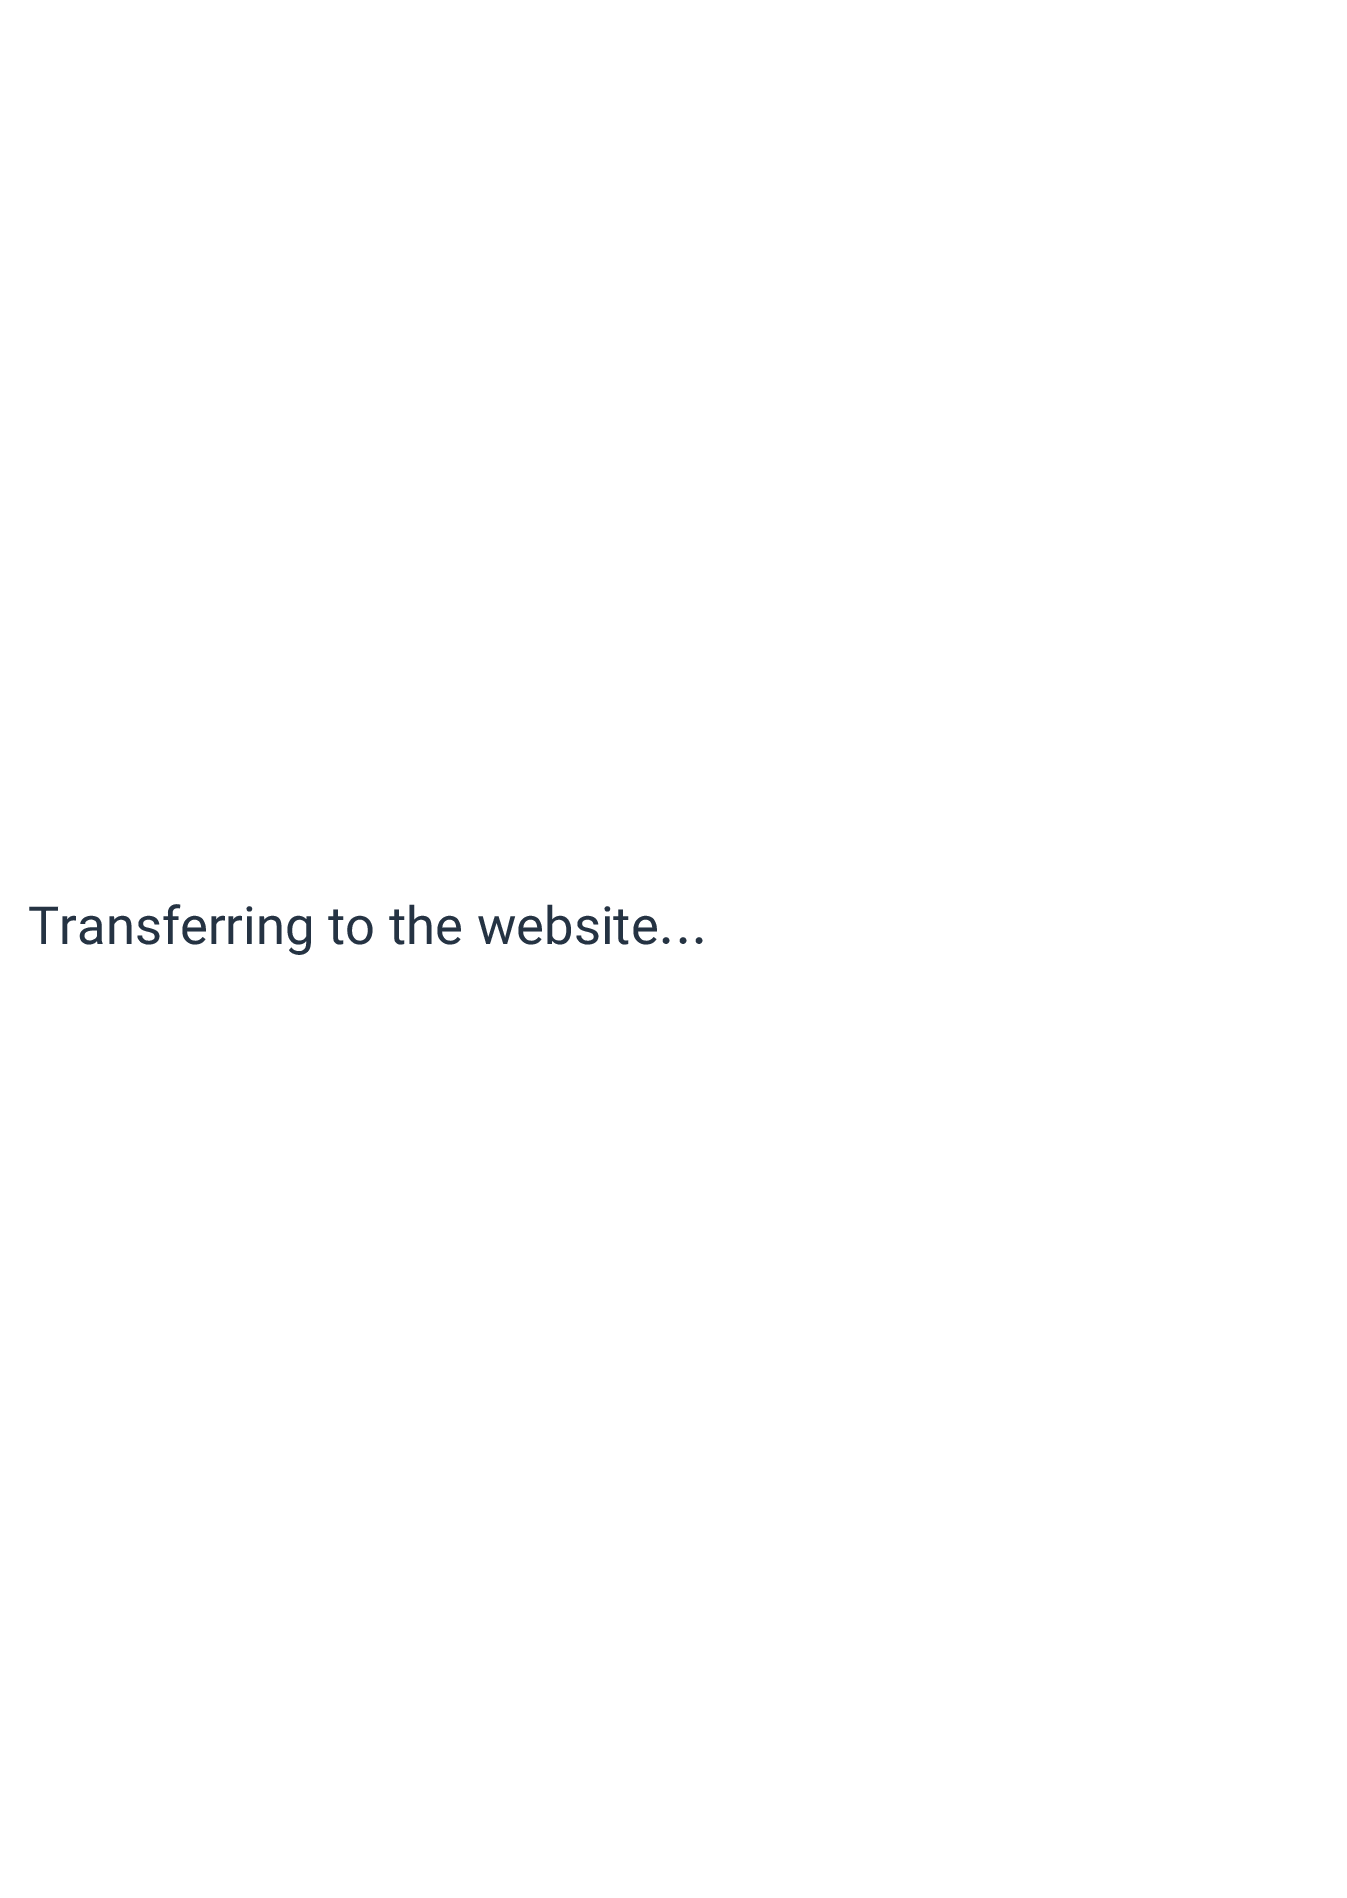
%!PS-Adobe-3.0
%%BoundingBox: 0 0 1347 1898
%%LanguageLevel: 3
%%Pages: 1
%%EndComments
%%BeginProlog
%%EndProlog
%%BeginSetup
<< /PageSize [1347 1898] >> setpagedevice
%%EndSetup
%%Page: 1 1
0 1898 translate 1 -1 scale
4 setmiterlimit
1 setgray
0 0 1347 1898 rectfill
/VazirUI-Regular [52.5 0 0 -52.5 0 0] selectfont
0.145 0.2 0.263 setrgbcolor
28 944 moveto (Transferring to the website...) show
showpage
%%EOF
